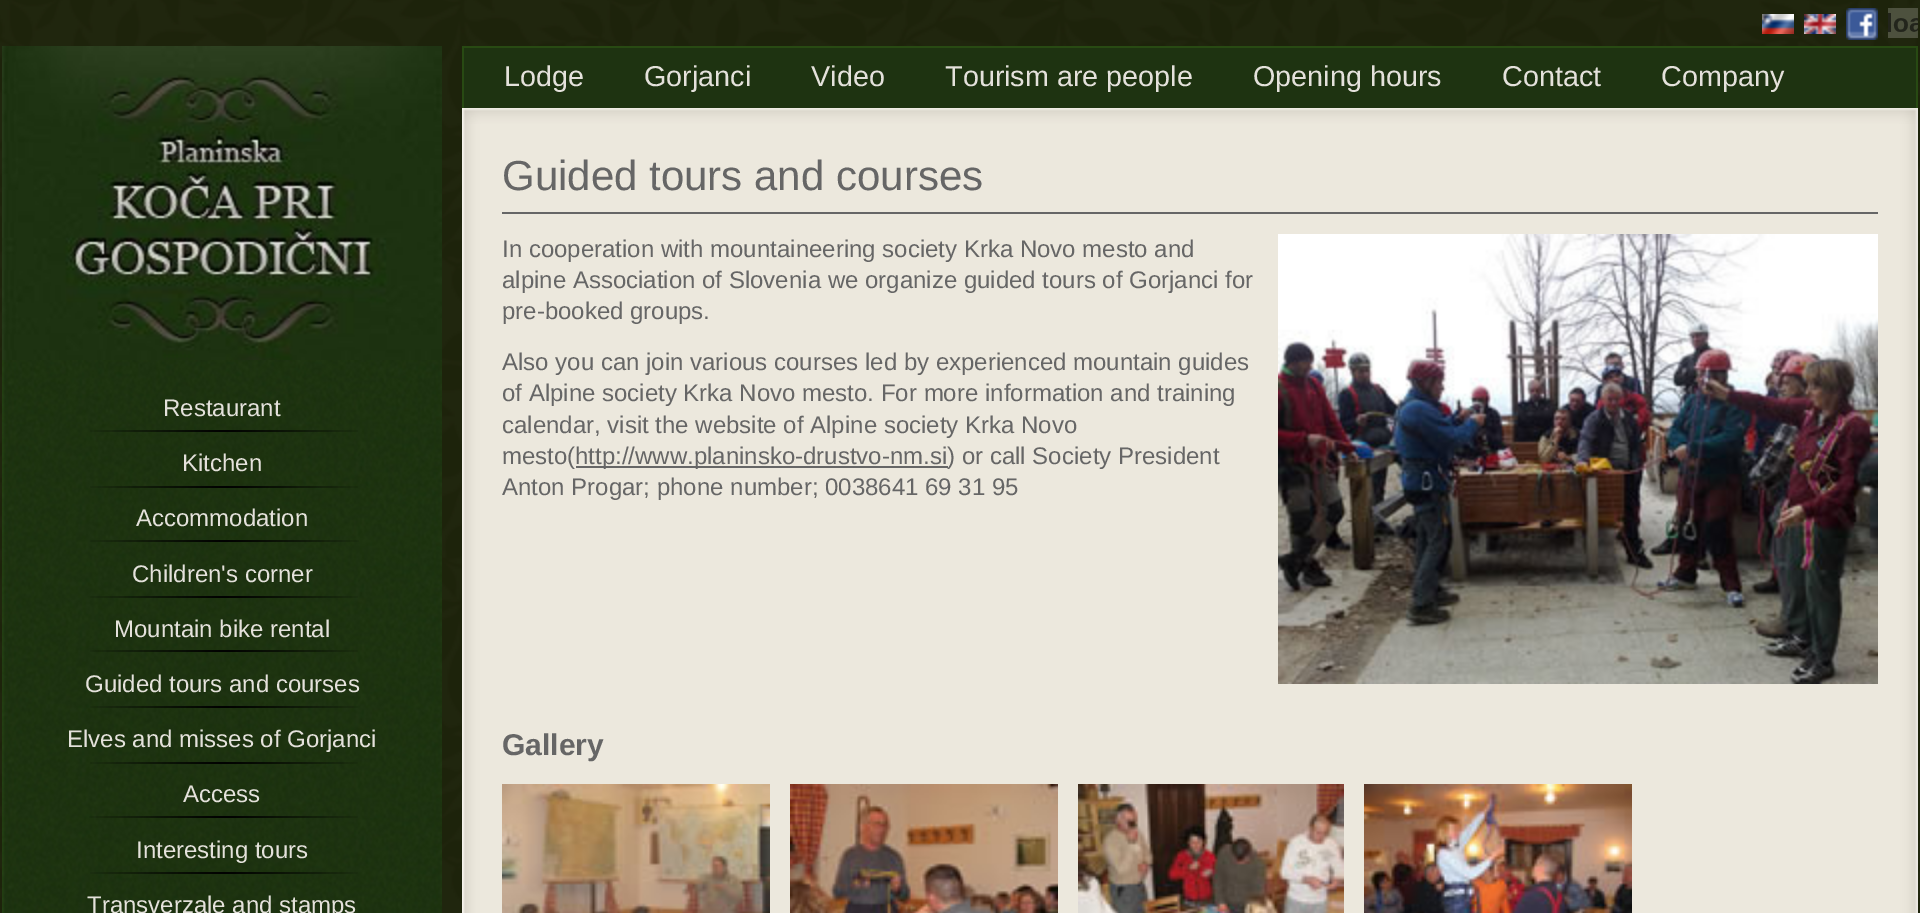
%!PS-Adobe-3.0
%%BoundingBox: 0 0 1920 913
%%LanguageLevel: 3
%%Pages: 1
%%EndComments
%%BeginProlog
/drawimage { 5 dict begin { /h /w /y /x /name } { exch def } forall
  gsave x y translate w h scale
  w h 8 [w 0 0 h 0 0] name (r) file false 3 colorimage grestore end } def
%%EndProlog
%%BeginSetup
<< /PageSize [1920 913] >> setpagedevice
%%EndSetup
%%Page: 1 1
0 913 translate 1 -1 scale
4 setmiterlimit
1 setgray
0 0 1920 913 rectfill
(images/1.raw) 0 0 1920 913 drawimage
(images/2.raw) 1762 14 32 20 drawimage
(images/3.raw) 1804 14 32 20 drawimage
(images/4.raw) 1846 8 32 32 drawimage
(images/5.raw) 1888 8 30 30 drawimage
(images/6.raw) 2 360 440 553 drawimage
(images/7.raw) 2 46 440 314 drawimage
(images/8.raw) 90 430 268 2 drawimage
(images/9.raw) 90 486 268 2 drawimage
(images/10.raw) 90 540 269 2 drawimage
(images/11.raw) 90 596 268 2 drawimage
(images/12.raw) 90 650 268 2 drawimage
(images/13.raw) 90 706 268 2 drawimage
(images/14.raw) 90 762 268 2 drawimage
(images/15.raw) 89 816 269 2 drawimage
(images/16.raw) 90 872 268 2 drawimage
0.118 0.2 0.067 setrgbcolor
464 48 1452 60 rectfill
0.157 0.29 0.075 setrgbcolor
462 46 1456 2 rectfill
1916 46 2 62 rectfill
462 46 2 62 rectfill
(images/17.raw) 462 108 1456 16 drawimage
(images/18.raw) 462 124 1456 789 drawimage
0.4 setgray
502 212 1376 2 rectfill
(images/19.raw) 1278 234 600 450 drawimage
576 466 372 2 rectfill
(images/20.raw) 502 784 268 129 drawimage
(images/21.raw) 790 784 268 129 drawimage
(images/22.raw) 1078 784 266 129 drawimage
(images/23.raw) 1364 784 268 129 drawimage
/LiberationSans-Regular [24 0 0 -24 0 0] selectfont
0.894 0.882 0.859 setrgbcolor
163 416 moveto (Restaurant) show
182 471 moveto (Kitchen) show
136 526 moveto (Accommodation) show
132 582 moveto (Children's corner) show
114 637 moveto (Mountain bike rental) show
85 692 moveto (Guided tours and courses) show
67 747 moveto (Elves and misses of Gorjanci) show
183 802 moveto (Access) show
136 858 moveto (Interesting tours) show
87 913 moveto (Transverzale and stamps) show
/LiberationSans-Regular [28.75 0 0 -28.75 0 0] selectfont
504 86 moveto (Lodge) show
644 86 moveto (Gorjanci) show
811 86 moveto (Video) show
945 86 moveto (Tourism are people) show
1253 86 moveto (Opening hours) show
1502 86 moveto (Contact) show
1661 86 moveto (Company) show
/LiberationSans-Regular [42 0 0 -42 0 0] selectfont
0.4 setgray
502 190 moveto (Guided tours and courses) show
/LiberationSans-Regular [24 0 0 -24 0 0] selectfont
502 257 moveto (In cooperation with mountaineering society Krka Novo mesto and) show
502 288 moveto (alpine Association of Slovenia we organize guided tours of Gorjanci for) show
502 319 moveto (pre-booked groups.) show
502 370 moveto (Also you can join various courses led by experienced mountain guides) show
502 401 moveto (of Alpine society Krka Novo mesto. For more information and training) show
502 433 moveto (calendar, visit the website of Alpine society Krka Novo) show
502 464 moveto (mesto\() show
575 464 moveto (http://www.planinsko-drustvo-nm.si\) or call Society President) show
502 495 moveto (Anton Progar; phone number; 0038641 69 31 95) show
/LiberationSans-Bold [30 0 0 -30 0 0] selectfont
502 755 moveto (Gallery) show
showpage
%%EOF
